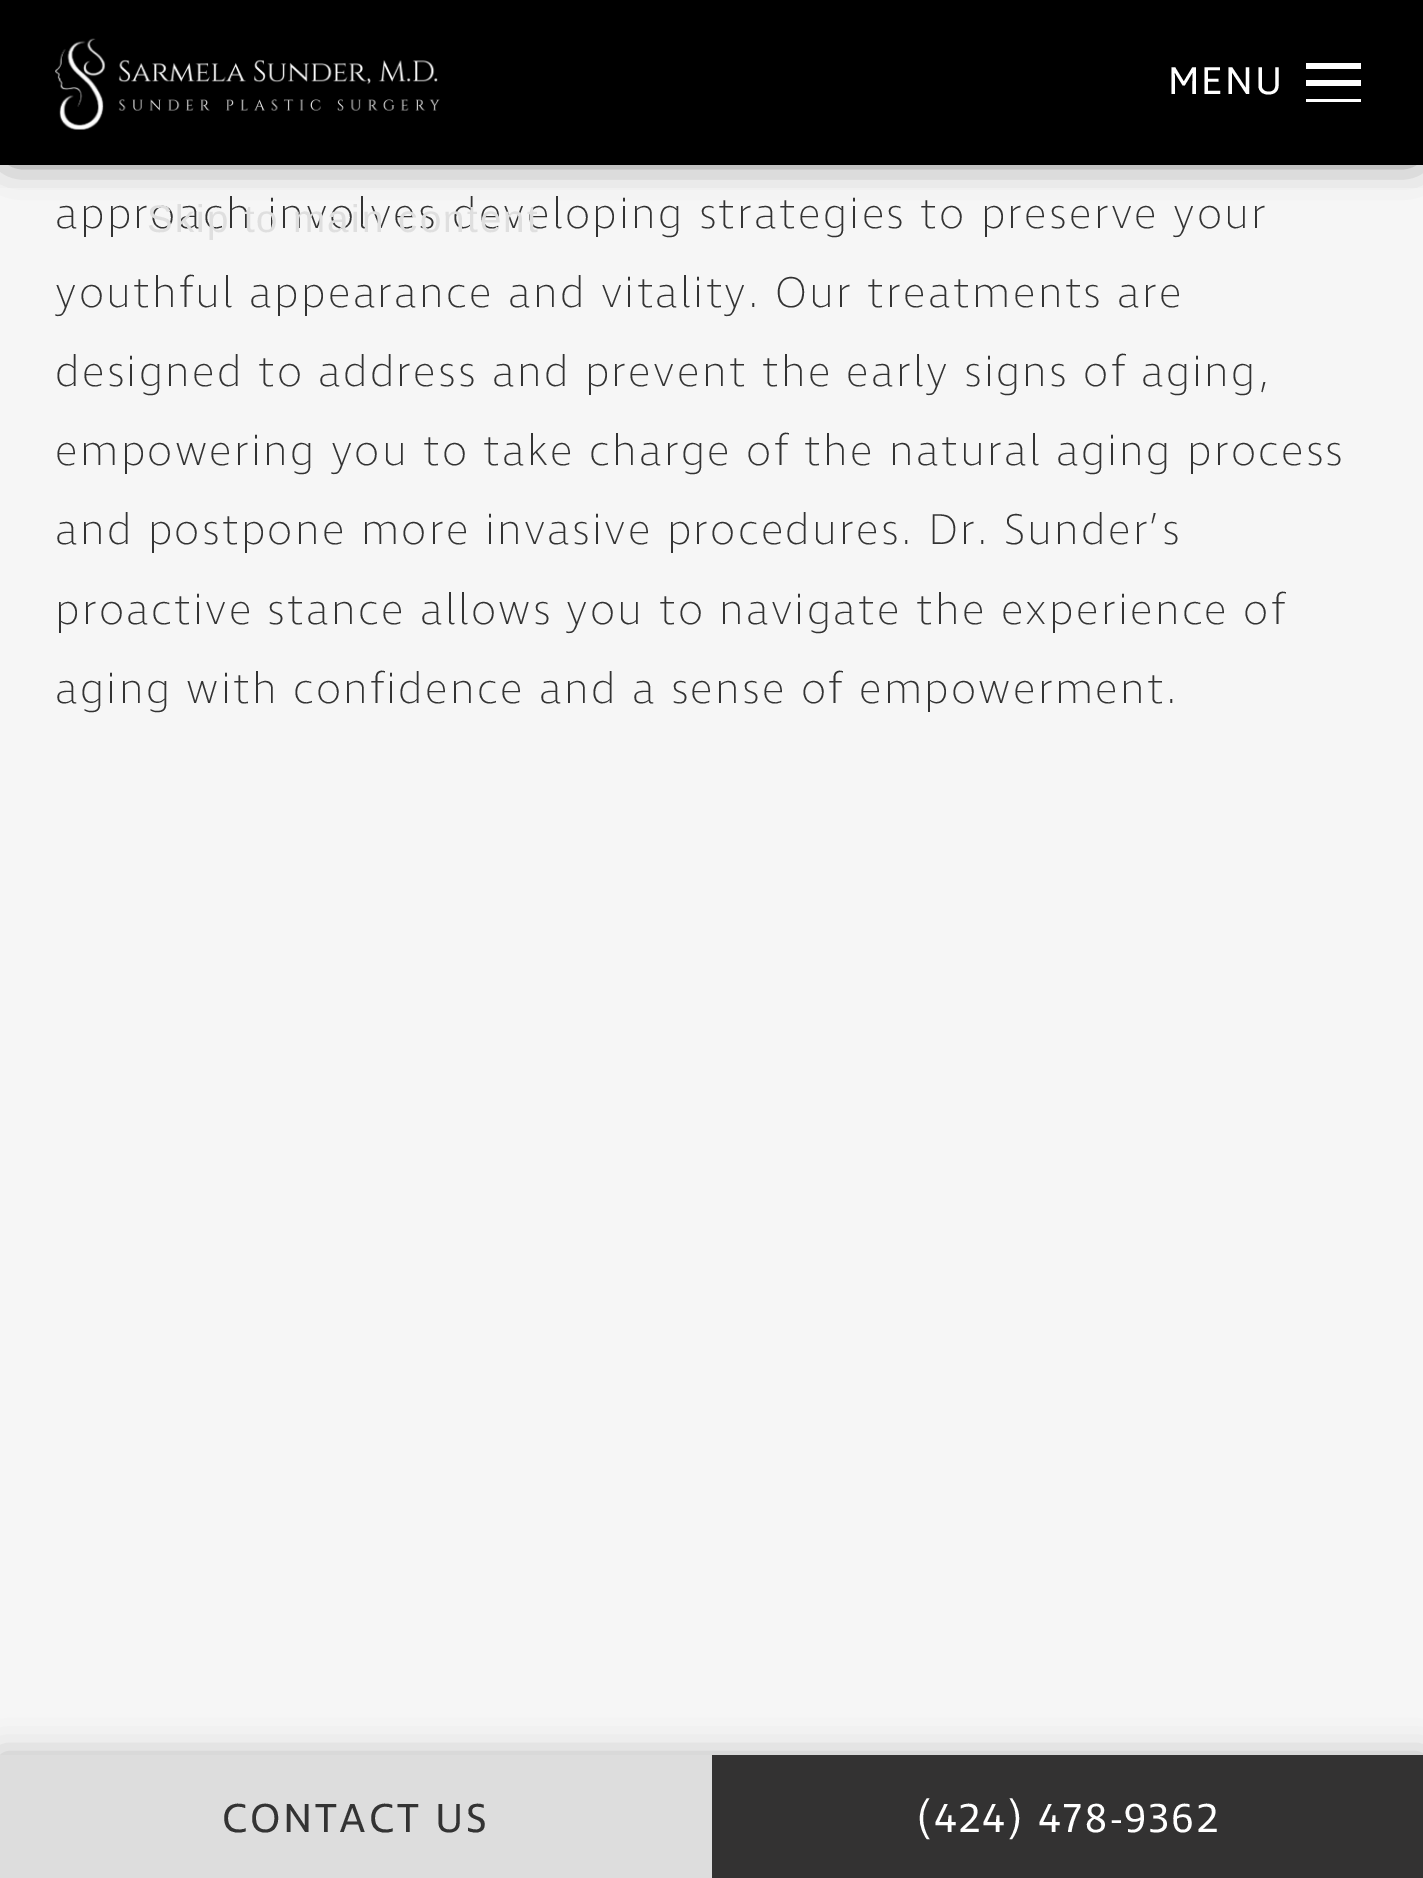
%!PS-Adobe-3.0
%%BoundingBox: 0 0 1423 1878
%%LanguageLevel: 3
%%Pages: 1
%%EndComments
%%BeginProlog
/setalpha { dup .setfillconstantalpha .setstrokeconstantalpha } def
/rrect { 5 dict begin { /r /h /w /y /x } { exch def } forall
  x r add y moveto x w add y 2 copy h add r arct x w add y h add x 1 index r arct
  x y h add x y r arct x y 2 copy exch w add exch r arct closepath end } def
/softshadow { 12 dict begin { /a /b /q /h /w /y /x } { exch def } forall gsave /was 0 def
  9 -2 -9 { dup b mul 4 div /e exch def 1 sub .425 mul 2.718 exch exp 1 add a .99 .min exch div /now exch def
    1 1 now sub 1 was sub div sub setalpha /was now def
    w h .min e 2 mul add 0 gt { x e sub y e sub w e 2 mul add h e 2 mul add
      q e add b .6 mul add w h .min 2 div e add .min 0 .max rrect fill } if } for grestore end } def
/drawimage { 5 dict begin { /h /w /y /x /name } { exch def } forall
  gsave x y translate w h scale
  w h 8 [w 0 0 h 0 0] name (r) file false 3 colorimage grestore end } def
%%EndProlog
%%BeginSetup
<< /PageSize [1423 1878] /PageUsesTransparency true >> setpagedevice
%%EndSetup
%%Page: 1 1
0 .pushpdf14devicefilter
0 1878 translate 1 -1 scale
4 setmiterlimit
0.965 setgray
0 0 1423 1878 rectfill
0.078 setgray
11 11 1403 143 0 20.5 0.4 softshadow
0 setgray
0 0 1423 165 rectfill
gsave
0 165 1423 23 rectclip
0.078 setgray
11 11 1403 143 0 20.5 0.4 softshadow
grestore
(images/1.raw) 55 38 385 92 drawimage
1 setgray
1306 63 55 6 rectfill
1306 80 55 6 rectfill
1306 99 55 3 rectfill
0.078 setgray
0 1755 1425 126 0 16.5 0.25 softshadow
0.867 setgray
0 1755 712 123 rectfill
0.2 0.196 0.196 setrgbcolor
712 1755 711 123 rectfill
/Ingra-Regular [39.5 0 0 -39.5 0 0] selectfont
1 setgray
1168 94 moveto 2 0 (MENU) ashow
/Ingra-ExtraLight [44 0 0 -44 0 0] selectfont
0.2 setgray
55 228 moveto 2.2 0 (approach involves developing strategies to preserve your) ashow
55 307 moveto 2.2 0 (youthful appearance and vitality. Our treatments are) ashow
55 386 moveto 2.2 0 (designed to address and prevent the early signs of aging,) ashow
55 465 moveto 2.2 0 (empowering you to take charge of the natural aging process) ashow
55 544 moveto 2.2 0 (and postpone more invasive procedures. Dr. Sunder’s) ashow
55 624 moveto 2.2 0 (proactive stance allows you to navigate the experience of) ashow
55 703 moveto 2.2 0 (aging with confidence and a sense of empowerment.) ashow
/LiberationSans-Regular [38.5 0 0 -38.5 0 0] selectfont
0.875 setgray
147 232 moveto 2.2 0 (Skip to main content) ashow
/Ingra-Regular [41.25 0 0 -41.25 0 0] selectfont
0.2 setgray
222 1832 moveto 2.75 0 (CONTACT US) ashow
1 setgray
917 1832 moveto 2.75 0 (\(424\) 478-9362) ashow
.poppdf14devicefilter showpage
%%EOF
